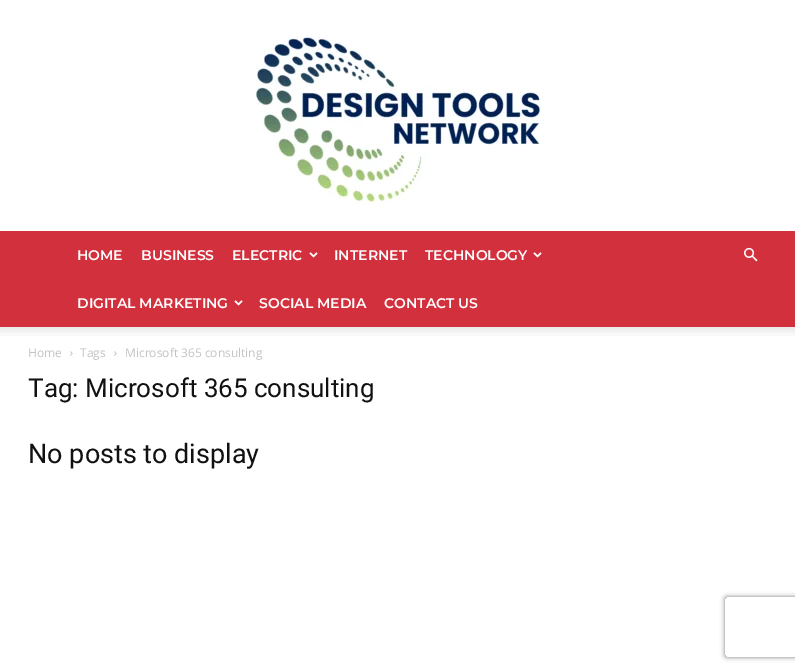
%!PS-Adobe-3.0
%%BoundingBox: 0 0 795 671
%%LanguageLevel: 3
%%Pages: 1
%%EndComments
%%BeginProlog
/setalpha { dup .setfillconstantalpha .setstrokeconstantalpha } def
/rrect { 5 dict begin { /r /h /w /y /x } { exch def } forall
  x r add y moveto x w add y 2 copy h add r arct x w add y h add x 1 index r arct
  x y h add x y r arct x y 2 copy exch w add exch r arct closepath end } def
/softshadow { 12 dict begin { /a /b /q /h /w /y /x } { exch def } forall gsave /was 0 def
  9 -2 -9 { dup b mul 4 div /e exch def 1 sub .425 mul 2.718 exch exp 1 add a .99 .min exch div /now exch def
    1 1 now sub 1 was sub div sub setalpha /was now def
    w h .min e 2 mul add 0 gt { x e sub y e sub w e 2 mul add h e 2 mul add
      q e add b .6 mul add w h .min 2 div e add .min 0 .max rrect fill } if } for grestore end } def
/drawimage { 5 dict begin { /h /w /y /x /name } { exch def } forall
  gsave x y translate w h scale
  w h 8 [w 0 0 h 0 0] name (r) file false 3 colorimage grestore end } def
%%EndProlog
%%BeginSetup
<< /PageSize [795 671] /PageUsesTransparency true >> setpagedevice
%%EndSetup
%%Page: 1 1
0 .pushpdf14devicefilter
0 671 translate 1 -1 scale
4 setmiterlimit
1 setgray
0 0 795 671 rectfill
(images/1.raw) 255 36 289 168 drawimage
0.827 0.188 0.243 setrgbcolor
0 231 795 96 rectfill
(images/2.raw) 309 252 9 6 drawimage
(images/2.raw) 533 252 9 6 drawimage
(images/2.raw) 234 300 9 6 drawimage
(images/3.raw) 744 247 14 15 drawimage
(images/4.raw) 0 327 795 9 drawimage
(images/5.raw) 70 351 3 5 drawimage
(images/5.raw) 114 351 3 5 drawimage
gsave
newpath 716 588 moveto 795 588 lineto 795 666 lineto 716 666 lineto closepath 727 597 moveto 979 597 lineto 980 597 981 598 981 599 curveto 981 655 lineto 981 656 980 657 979 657 curveto 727 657 lineto 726 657 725 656 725 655 curveto 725 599 lineto 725 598 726 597 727 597 curveto closepath eoclip newpath
0.502 setgray
725 597 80 60 2 2.5 1 softshadow
grestore
/Montserrat-SemiBold [14 0 0 -14 0 0] selectfont
1 setgray
77 260 moveto (HOME) show
141 260 moveto (BUSINESS) show
232 260 moveto (ELECTRIC) show
334 260 moveto (INTERNET) show
425 260 moveto (TECHNOLOGY) show
77 308 moveto (DIGITAL MARKETING) show
259 308 moveto (SOCIAL MEDIA) show
384 308 moveto (CONTACT US) show
/OpenSans-Regular [12 0 0 -12 0 0] selectfont
0.765 setgray
28 357 moveto (Home) show
80 357 moveto (Tags) show
125 357 moveto (Microsoft 365 consulting) show
/Roboto-Regular [26 0 0 -26 0 0] selectfont
0.067 setgray
28 397 moveto (Tag: Microsoft 365 consulting) show
/Roboto-Regular [27 0 0 -27 0 0] selectfont
28 463 moveto (No posts to display) show
.poppdf14devicefilter showpage
%%EOF
